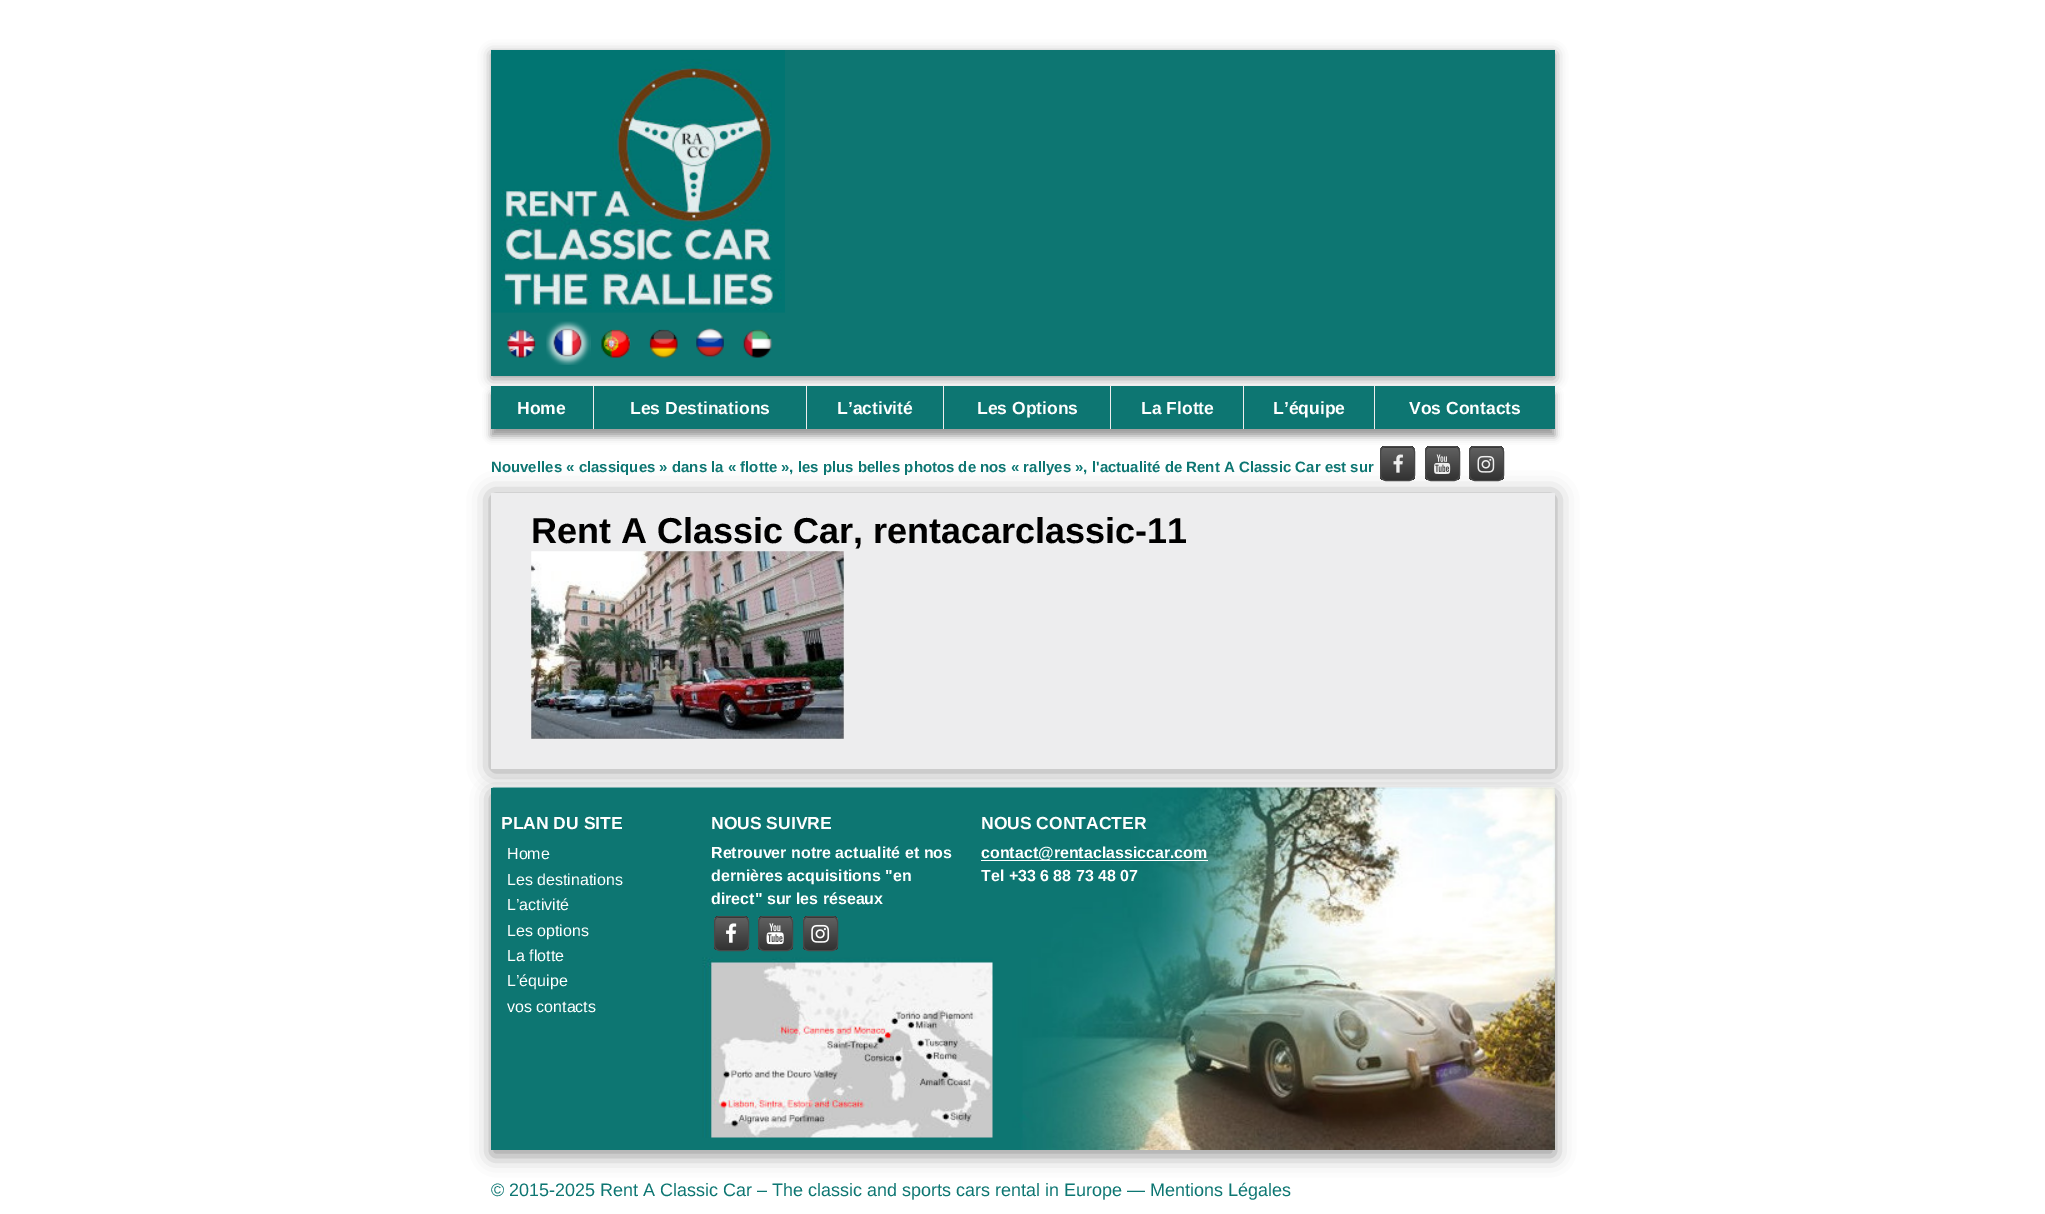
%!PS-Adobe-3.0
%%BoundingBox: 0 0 2045 1214
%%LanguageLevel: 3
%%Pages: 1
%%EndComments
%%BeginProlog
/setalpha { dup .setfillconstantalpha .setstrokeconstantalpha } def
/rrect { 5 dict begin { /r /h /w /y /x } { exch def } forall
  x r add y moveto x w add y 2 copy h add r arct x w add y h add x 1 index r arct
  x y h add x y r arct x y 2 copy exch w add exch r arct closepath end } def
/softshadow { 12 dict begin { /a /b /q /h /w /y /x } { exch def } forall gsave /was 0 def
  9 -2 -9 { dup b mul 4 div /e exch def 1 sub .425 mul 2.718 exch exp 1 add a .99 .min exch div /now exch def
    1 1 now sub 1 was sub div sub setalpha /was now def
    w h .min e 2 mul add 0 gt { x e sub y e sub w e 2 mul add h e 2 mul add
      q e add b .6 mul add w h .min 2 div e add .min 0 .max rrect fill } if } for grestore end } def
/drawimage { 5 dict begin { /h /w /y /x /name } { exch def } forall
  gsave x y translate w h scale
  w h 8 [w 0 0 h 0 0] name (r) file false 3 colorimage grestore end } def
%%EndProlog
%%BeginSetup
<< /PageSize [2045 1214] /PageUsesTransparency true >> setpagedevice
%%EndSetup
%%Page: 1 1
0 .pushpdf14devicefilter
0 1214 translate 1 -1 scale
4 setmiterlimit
1 setgray
0 0 2045 1214 rectfill
0.596 setgray
491 53 1064 326 0 6 1 softshadow
0.051 0.463 0.447 setrgbcolor
491 50 1064 326 rectfill
(images/1.raw) 491 50 294 263 drawimage
(images/2.raw) 507 329 29 29 drawimage
(images/3.raw) 546 321 45 44 drawimage
(images/4.raw) 601 329 30 29 drawimage
(images/5.raw) 649 329 29 29 drawimage
(images/6.raw) 696 328 28 30 drawimage
(images/7.raw) 743 329 30 29 drawimage
gsave
1380 446 35 35 6 rrect clip newpath
gsave newpath 1380 446 moveto 1415 446 lineto 1415 448 lineto 1380 448 lineto closepath clip newpath
<< /ShadingType 2 /ColorSpace /DeviceRGB /Coords [1398 415 1398 448] /Extend [true true] /Function << /FunctionType 2 /Domain [0 1] /C0 [0.376 0.376 0.376] /C1 [0.196 0.196 0.196] /N 1 >> >> shfill grestore
grestore
0.596 setgray
491 495 1064 276 0 11 1 softshadow
gsave
1380 446 35 35 6 rrect clip newpath
gsave newpath 1380 448 moveto 1415 448 lineto 1415 480 lineto 1380 480 lineto closepath clip newpath
<< /ShadingType 2 /ColorSpace /DeviceRGB /Coords [1398 448 1398 480] /Extend [true true] /Function << /FunctionType 2 /Domain [0 1] /C0 [0.376 0.376 0.376] /C1 [0.196 0.196 0.196] /N 1 >> >> shfill grestore
grestore
0.282 setgray
1380.5 446.5 34 34 5.5 rrect stroke
gsave
1425 446 35 35 6 rrect clip newpath
gsave newpath 1425 446 moveto 1460 446 lineto 1460 448 lineto 1425 448 lineto closepath clip newpath
<< /ShadingType 2 /ColorSpace /DeviceRGB /Coords [1443 415 1443 448] /Extend [true true] /Function << /FunctionType 2 /Domain [0 1] /C0 [0.376 0.376 0.376] /C1 [0.196 0.196 0.196] /N 1 >> >> shfill grestore
gsave newpath 1425 448 moveto 1460 448 lineto 1460 480 lineto 1425 480 lineto closepath clip newpath
<< /ShadingType 2 /ColorSpace /DeviceRGB /Coords [1443 448 1443 480] /Extend [true true] /Function << /FunctionType 2 /Domain [0 1] /C0 [0.376 0.376 0.376] /C1 [0.196 0.196 0.196] /N 1 >> >> shfill grestore
grestore
1425.5 446.5 34 34 5.5 rrect stroke
gsave
1469 446 35 35 6 rrect clip newpath
gsave newpath 1469 446 moveto 1504 446 lineto 1504 448 lineto 1469 448 lineto closepath clip newpath
<< /ShadingType 2 /ColorSpace /DeviceRGB /Coords [1486 415 1486 448] /Extend [true true] /Function << /FunctionType 2 /Domain [0 1] /C0 [0.376 0.376 0.376] /C1 [0.196 0.196 0.196] /N 1 >> >> shfill grestore
gsave newpath 1469 448 moveto 1504 448 lineto 1504 480 lineto 1469 480 lineto closepath clip newpath
<< /ShadingType 2 /ColorSpace /DeviceRGB /Coords [1486 448 1486 480] /Extend [true true] /Function << /FunctionType 2 /Domain [0 1] /C0 [0.376 0.376 0.376] /C1 [0.196 0.196 0.196] /N 1 >> >> shfill grestore
grestore
1469.5 446.5 34 34 5.5 rrect stroke
0.596 setgray
491 394 1064 42 0 4 1 softshadow
0.051 0.463 0.447 setrgbcolor
491 386 1064 43 rectfill
0.933 setgray
593 386 1 43 rectfill
806 386 1 43 rectfill
943 386 1 43 rectfill
1110 386 1 43 rectfill
1243 386 1 43 rectfill
1374 386 1 43 rectfill
(images/8.raw) 1393 454 10 19 drawimage
(images/9.raw) 1434 454 17 20 drawimage
(images/10.raw) 1477 455 18 18 drawimage
0.929 0.929 0.933 setrgbcolor
491 493 1064 276 rectfill
(images/11.raw) 531 551 313 188 drawimage
0.596 setgray
491 794 1064 362 0 9.5 1 softshadow
0.051 0.463 0.447 setrgbcolor
491 788 2 362 rectfill
(images/12.raw) 492 787 1063 363 drawimage
gsave
714 916 35 35 6 rrect clip newpath
gsave newpath 714 916 moveto 749 916 lineto 749 918 lineto 714 918 lineto closepath clip newpath
<< /ShadingType 2 /ColorSpace /DeviceRGB /Coords [731 885 731 918] /Extend [true true] /Function << /FunctionType 2 /Domain [0 1] /C0 [0.376 0.376 0.376] /C1 [0.196 0.196 0.196] /N 1 >> >> shfill grestore
gsave newpath 714 918 moveto 749 918 lineto 749 950 lineto 714 950 lineto closepath clip newpath
<< /ShadingType 2 /ColorSpace /DeviceRGB /Coords [731 918 731 950] /Extend [true true] /Function << /FunctionType 2 /Domain [0 1] /C0 [0.376 0.376 0.376] /C1 [0.196 0.196 0.196] /N 1 >> >> shfill grestore
grestore
0.282 setgray
714.5 916.5 34 34 5.5 rrect stroke
(images/13.raw) 726 923 11 20 drawimage
gsave
758 916 35 35 6 rrect clip newpath
gsave newpath 758 916 moveto 793 916 lineto 793 918 lineto 758 918 lineto closepath clip newpath
<< /ShadingType 2 /ColorSpace /DeviceRGB /Coords [775 885 775 918] /Extend [true true] /Function << /FunctionType 2 /Domain [0 1] /C0 [0.376 0.376 0.376] /C1 [0.196 0.196 0.196] /N 1 >> >> shfill grestore
gsave newpath 758 918 moveto 793 918 lineto 793 950 lineto 758 950 lineto closepath clip newpath
<< /ShadingType 2 /ColorSpace /DeviceRGB /Coords [775 918 775 950] /Extend [true true] /Function << /FunctionType 2 /Domain [0 1] /C0 [0.376 0.376 0.376] /C1 [0.196 0.196 0.196] /N 1 >> >> shfill grestore
grestore
758.5 916.5 34 34 5.5 rrect stroke
(images/14.raw) 766 923 18 22 drawimage
gsave
803 916 35 35 6 rrect clip newpath
gsave newpath 803 916 moveto 838 916 lineto 838 918 lineto 803 918 lineto closepath clip newpath
<< /ShadingType 2 /ColorSpace /DeviceRGB /Coords [820 885 820 918] /Extend [true true] /Function << /FunctionType 2 /Domain [0 1] /C0 [0.376 0.376 0.376] /C1 [0.196 0.196 0.196] /N 1 >> >> shfill grestore
gsave newpath 803 918 moveto 838 918 lineto 838 950 lineto 803 950 lineto closepath clip newpath
<< /ShadingType 2 /ColorSpace /DeviceRGB /Coords [820 918 820 950] /Extend [true true] /Function << /FunctionType 2 /Domain [0 1] /C0 [0.376 0.376 0.376] /C1 [0.196 0.196 0.196] /N 1 >> >> shfill grestore
grestore
803.5 916.5 34 34 5.5 rrect stroke
(images/15.raw) 811 924 19 19 drawimage
1 setgray
981 860 227 1 rectfill
/LiberationSans-Bold [17.5 0 0 -17.5 0 0] selectfont
517 414 moveto (Home) show
630 414 moveto (Les Destinations) show
837 414 moveto (L’activité) show
977 414 moveto (Les Options) show
1141 414 moveto (La Flotte) show
1273 414 moveto (L’équipe) show
1409 414 moveto (Vos Contacts) show
/LiberationSans-Bold [15 0 0 -15 0 0] selectfont
0.051 0.463 0.447 setrgbcolor
491 472 moveto (Nouvelles « classiques » dans la « flotte », les plus belles photos de nos « rallyes », l'actualité de Rent A Classic Car est sur) show
/LiberationSans-Bold [36 0 0 -36 0 0] selectfont
0 setgray
531 543 moveto (Rent A Classic Car, rentacarclassic-11) show
/LiberationSans-Bold [17.5 0 0 -17.5 0 0] selectfont
1 setgray
501 829 moveto (PLAN DU SITE) show
/LiberationSans-Regular [16 0 0 -16 0 0] selectfont
507 859 moveto (Home) show
507 885 moveto (Les destinations) show
507 910 moveto (L’activité) show
507 936 moveto (Les options) show
507 961 moveto (La flotte) show
507 986 moveto (L’équipe) show
507 1012 moveto (vos contacts) show
/LiberationSans-Bold [17.5 0 0 -17.5 0 0] selectfont
711 829 moveto (NOUS SUIVRE) show
/LiberationSans-Bold [16 0 0 -16 0 0] selectfont
711 858 moveto (Retrouver notre actualité et nos) show
711 881 moveto (dernières acquisitions "en) show
711 904 moveto (direct" sur les réseaux) show
/LiberationSans-Bold [17.5 0 0 -17.5 0 0] selectfont
981 829 moveto (NOUS CONTACTER) show
/LiberationSans-Bold [16 0 0 -16 0 0] selectfont
981 858 moveto (contact@rentaclassiccar.com) show
981 881 moveto (Tel +33 6 88 73 48 07) show
/LiberationSans-Regular [18 0 0 -18 0 0] selectfont
0.051 0.463 0.447 setrgbcolor
491 1196 moveto (© 2015-2025 Rent A Classic Car – The classic and sports cars rental in Europe — Mentions Légales) show
.poppdf14devicefilter showpage
%%EOF
